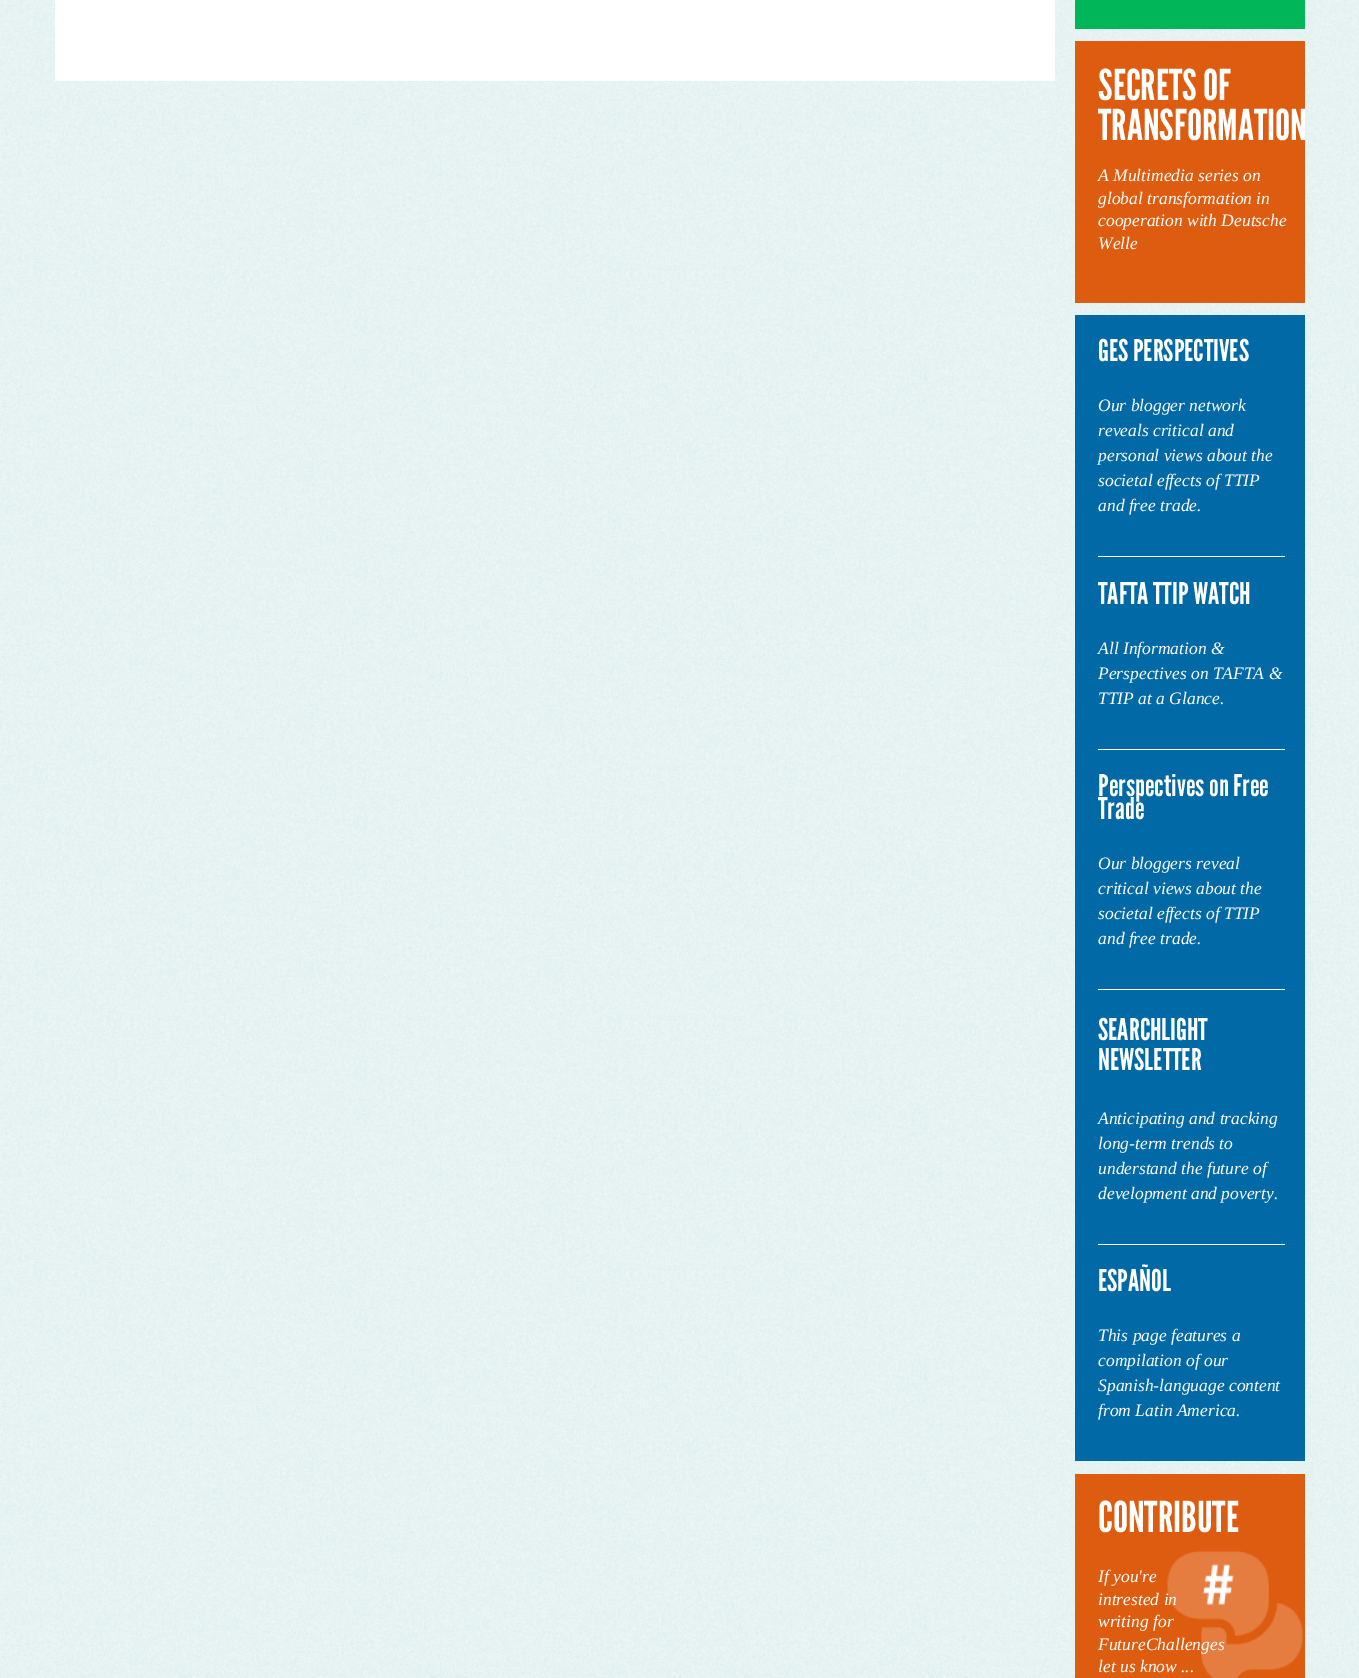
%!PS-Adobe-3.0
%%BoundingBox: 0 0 1359 1678
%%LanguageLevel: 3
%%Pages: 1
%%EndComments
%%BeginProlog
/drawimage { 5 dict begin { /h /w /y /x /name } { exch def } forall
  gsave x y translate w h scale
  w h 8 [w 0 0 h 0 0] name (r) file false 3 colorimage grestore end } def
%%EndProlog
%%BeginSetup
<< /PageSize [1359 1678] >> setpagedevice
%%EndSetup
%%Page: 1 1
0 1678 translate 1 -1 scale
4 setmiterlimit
1 setgray
0 0 1359 1678 rectfill
(images/1.raw) 0 0 1359 1678 drawimage
55 0 1000 81 rectfill
0 0.714 0.349 setrgbcolor
1075 0 230 29 rectfill
0.871 0.361 0.063 setrgbcolor
1075 41 230 262 rectfill
0 0.412 0.651 setrgbcolor
1075 315 230 1146 rectfill
1 setgray
1098 556 187 1 rectfill
1098 749 187 1 rectfill
1098 989 187 1 rectfill
1098 1244 187 1 rectfill
0.871 0.361 0.063 setrgbcolor
1075 1474 230 204 rectfill
(images/2.raw) 1167 1550 136 128 drawimage
/LeagueGothic-Regular [42.5 0 0 -42.5 0 0] selectfont
1 setgray
1098 100 moveto (SECRETS OF) show
1098 140 moveto (TRANSFORMATION) show
/LiberationSerif-Italic [17.5 0 0 -17.5 0 0] selectfont
1098 181 moveto (A Multimedia series on) show
1098 204 moveto (global transformation in) show
1098 226 moveto (cooperation with Deutsche) show
1098 249 moveto (Welle) show
/LeagueGothic-Regular [30 0 0 -30 0 0] selectfont
1098 361 moveto (GES PERSPECTIVES) show
/LiberationSerif-Italic [17.5 0 0 -17.5 0 0] selectfont
1098 411 moveto (Our blogger network) show
1098 436 moveto (reveals critical and) show
1098 461 moveto (personal views about the) show
1098 486 moveto (societal effects of TTIP) show
1098 511 moveto (and free trade.) show
/LeagueGothic-Regular [30 0 0 -30 0 0] selectfont
1098 604 moveto (TAFTA TTIP WATCH) show
/LiberationSerif-Italic [17.5 0 0 -17.5 0 0] selectfont
1098 654 moveto (All Information &) show
1098 679 moveto (Perspectives on TAFTA &) show
1098 704 moveto (TTIP at a Glance.) show
/LeagueGothic-Regular [30 0 0 -30 0 0] selectfont
1098 796 moveto (Perspectives on Free) show
1098 819 moveto (Trade) show
/LiberationSerif-Italic [17.5 0 0 -17.5 0 0] selectfont
1098 869 moveto (Our bloggers reveal) show
1098 894 moveto (critical views about the) show
1098 919 moveto (societal effects of TTIP) show
1098 944 moveto (and free trade.) show
/LeagueGothic-Regular [30 0 0 -30 0 0] selectfont
1098 1040 moveto (SEARCHLIGHT) show
1098 1070 moveto (NEWSLETTER) show
/LiberationSerif-Italic [17.5 0 0 -17.5 0 0] selectfont
1098 1124 moveto (Anticipating and tracking) show
1098 1149 moveto (long-term trends to) show
1098 1174 moveto (understand the future of) show
1098 1199 moveto (development and poverty.) show
/LeagueGothic-Regular [30 0 0 -30 0 0] selectfont
1098 1291 moveto (ESPAÑOL) show
/LiberationSerif-Italic [17.5 0 0 -17.5 0 0] selectfont
1098 1341 moveto (This page features a) show
1098 1366 moveto (compilation of our) show
1098 1391 moveto (Spanish-language content) show
1098 1416 moveto (from Latin America.) show
/LeagueGothic-Regular [42.5 0 0 -42.5 0 0] selectfont
1098 1532 moveto (CONTRIBUTE) show
/LiberationSerif-Italic [17.5 0 0 -17.5 0 0] selectfont
1098 1582 moveto (If you're) show
1098 1605 moveto (intrested in) show
1098 1627 moveto (writing for) show
1098 1650 moveto (FutureChallenges) show
1098 1672 moveto (let us know ...) show
showpage
%%EOF
